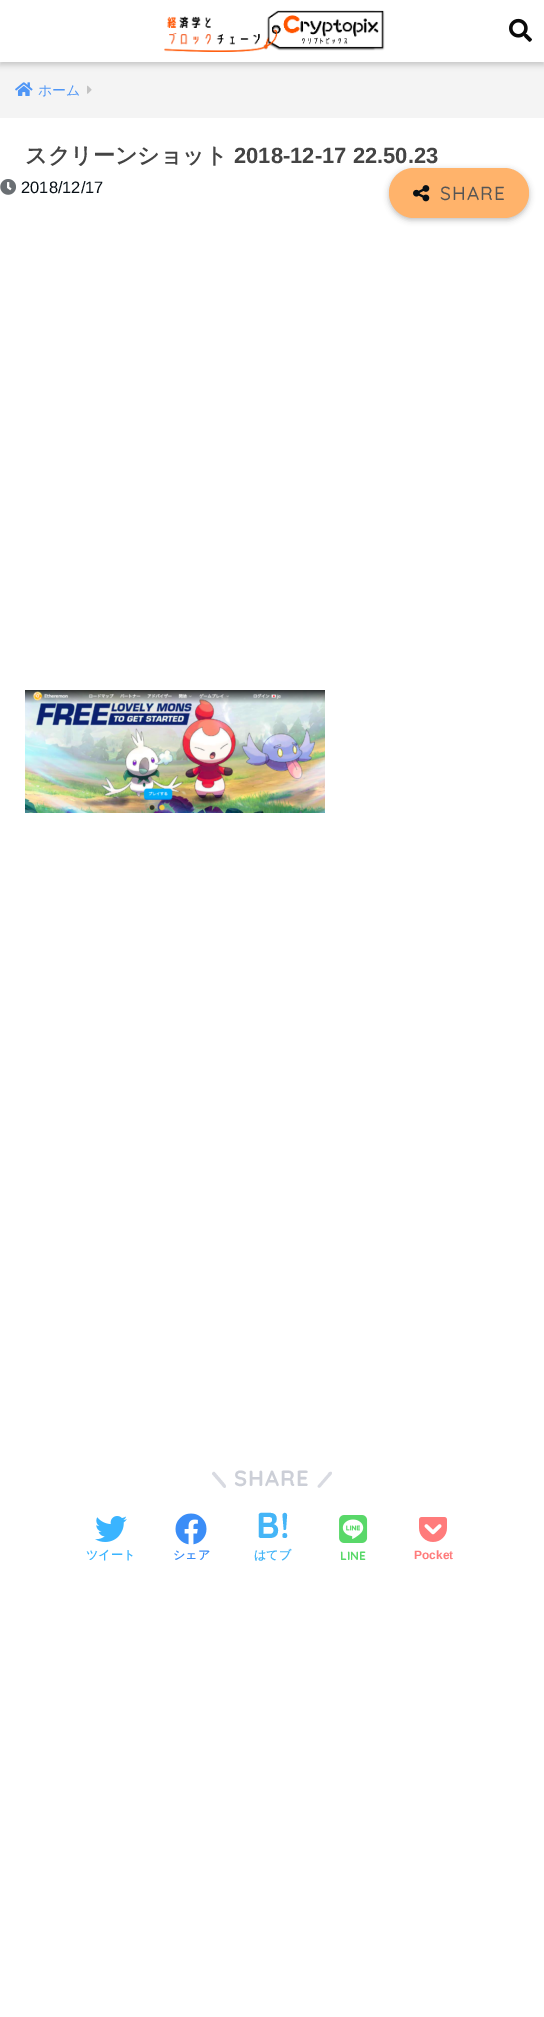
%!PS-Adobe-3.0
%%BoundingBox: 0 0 544 2017
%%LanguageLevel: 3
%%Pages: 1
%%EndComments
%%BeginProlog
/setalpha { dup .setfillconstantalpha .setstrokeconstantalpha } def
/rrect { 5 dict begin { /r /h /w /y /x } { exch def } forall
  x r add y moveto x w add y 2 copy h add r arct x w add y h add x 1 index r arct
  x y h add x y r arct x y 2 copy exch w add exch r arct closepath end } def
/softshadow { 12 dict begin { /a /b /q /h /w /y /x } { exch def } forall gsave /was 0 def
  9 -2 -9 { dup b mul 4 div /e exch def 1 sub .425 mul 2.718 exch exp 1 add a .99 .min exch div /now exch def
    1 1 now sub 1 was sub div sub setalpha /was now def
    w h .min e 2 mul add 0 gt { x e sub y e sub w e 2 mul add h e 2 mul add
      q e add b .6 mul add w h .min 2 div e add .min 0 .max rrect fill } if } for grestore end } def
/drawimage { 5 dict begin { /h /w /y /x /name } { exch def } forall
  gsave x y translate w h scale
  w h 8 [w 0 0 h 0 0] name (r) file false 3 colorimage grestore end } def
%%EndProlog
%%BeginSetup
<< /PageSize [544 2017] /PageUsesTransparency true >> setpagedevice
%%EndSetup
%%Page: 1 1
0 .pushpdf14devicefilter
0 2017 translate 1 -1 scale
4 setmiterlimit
1 setgray
0 0 544 2017 rectfill
0.957 setgray
0 62 544 56 rectfill
0 setgray
0 3 544 62 0 3 0.18 softshadow
1 setgray
0 0 544 62 rectfill
(images/1.raw) 164 10 221 42 drawimage
(images/2.raw) 509 18 23 24 drawimage
(images/3.raw) 15 82 18 14 drawimage
(images/4.raw) 87 85 5 9 drawimage
(images/5.raw) 0 179 16 16 drawimage
0 setgray
389 170 140 50 25 3 0.25 softshadow
1 0.702 0.42 setrgbcolor
389 168 140 50 25 rrect fill
(images/6.raw) 413 185 17 17 drawimage
(images/7.raw) 25 690 300 123 drawimage
0.847 0.855 0.882 setrgbcolor
newpath 215 1472.5 moveto 224 1483 lineto 224.5 1484 227 1486 225.5 1487.5 curveto 224 1489 222.5 1486 221.5 1485 curveto 212 1474 lineto 212 1472.5 214 1471 215 1472.5 curveto closepath fill
newpath 318 1485.5 moveto 327.5 1474.5 lineto 328 1473.5 329.5 1471 331.5 1472 curveto 333 1473.5 330.5 1475.5 329.5 1476.5 curveto 320 1487.5 lineto 318.5 1488.5 317 1486.5 318 1485.5 curveto closepath fill
(images/8.raw) 95 1516 32 26 drawimage
(images/9.raw) 175 1513 32 32 drawimage
(images/10.raw) 339 1515 29 28 drawimage
(images/11.raw) 419 1517 28 25 drawimage
/WenQuanYiZenHei-Medium [14 0 0 -14 0 0] selectfont
0.31 0.588 0.965 setrgbcolor
38 95 moveto (ホーム) show
/WenQuanYiZenHei-Bold [22 0 0 -22 0 0] selectfont
0.267 setgray
25 163 moveto (スクリーンショット) show
/LiberationSans-Bold [22 0 0 -22 0 0] selectfont
234 163 moveto (2018-12-17 22.50.23) show
/LiberationSans-Regular [16.5 0 0 -16.5 0 0] selectfont
0.027 0.059 0.082 setrgbcolor
21 193 moveto (2018/12/17) show
/Quicksand-Medium [19 0 0 -19 0 0] selectfont
0.333 setgray
440 200 moveto 1 0 (SHARE) ashow
/Quicksand-Bold [22 0 0 -22 0 0] selectfont
0.8 0.812 0.843 setrgbcolor
234 1486 moveto 1 0 (SHARE) ashow
/WenQuanYiZenHei-Bold [12 0 0 -12 0 0] selectfont
0.227 0.706 1 setrgbcolor
86 1559 moveto (ツイート) show
0.231 0.553 0.969 setrgbcolor
173 1559 moveto (シェア) show
/Quicksand-Bold [36 0 0 -36 0 0] selectfont
0.271 0.71 0.969 setrgbcolor
256 1538 moveto (B!) show
/WenQuanYiZenHei-Bold [12 0 0 -12 0 0] selectfont
254 1559 moveto (はてブ) show
/Quicksand-Bold [12 0 0 -12 0 0] selectfont
0.349 0.847 0.412 setrgbcolor
340 1560 moveto (LINE) show
/LiberationSans-Bold [12 0 0 -12 0 0] selectfont
1 0.482 0.482 setrgbcolor
414 1559 moveto (Pocket) show
.poppdf14devicefilter showpage
%%EOF
